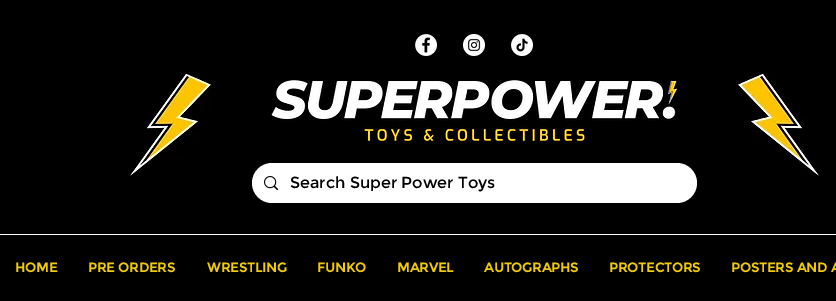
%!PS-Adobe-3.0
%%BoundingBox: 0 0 836 301
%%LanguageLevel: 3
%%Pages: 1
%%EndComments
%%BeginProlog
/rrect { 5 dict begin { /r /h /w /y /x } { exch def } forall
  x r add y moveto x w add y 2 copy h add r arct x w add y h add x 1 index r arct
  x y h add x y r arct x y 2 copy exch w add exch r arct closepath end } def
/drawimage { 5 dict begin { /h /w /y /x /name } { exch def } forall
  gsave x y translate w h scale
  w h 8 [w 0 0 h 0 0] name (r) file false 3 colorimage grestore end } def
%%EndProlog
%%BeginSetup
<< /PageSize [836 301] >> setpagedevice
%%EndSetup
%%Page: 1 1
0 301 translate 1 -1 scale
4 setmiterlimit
1 setgray
0 0 836 301 rectfill
0 setgray
0 0 836 234 rectfill
(images/1.raw) 415 34 22 22 drawimage
(images/2.raw) 463 34 22 22 drawimage
(images/3.raw) 511 34 22 22 drawimage
(images/4.raw) 128 72 84 104 drawimage
(images/5.raw) 271 80 406 61 drawimage
(images/6.raw) 738 72 83 104 drawimage
1 setgray
252 163 445 40 20 rrect fill
(images/7.raw) 264 176 14 14 drawimage
0 setgray
0 235 836 66 rectfill
/Montserrat-Regular [16 0 0 -16 0 0] selectfont
290 188 moveto (Search Super Power Toys) show
/Montserrat-Bold [13 0 0 -13 0 0] selectfont
0.933 0.792 0.031 setrgbcolor
15 272 moveto (HOME) show
88 272 moveto (PRE ORDERS) show
207 272 moveto (WRESTLING) show
317 272 moveto (FUNKO) show
397 272 moveto (MARVEL) show
484 272 moveto (AUTOGRAPHS) show
609 272 moveto (PROTECTORS) show
731 272 moveto (POSTERS AND A) show
showpage
%%EOF
